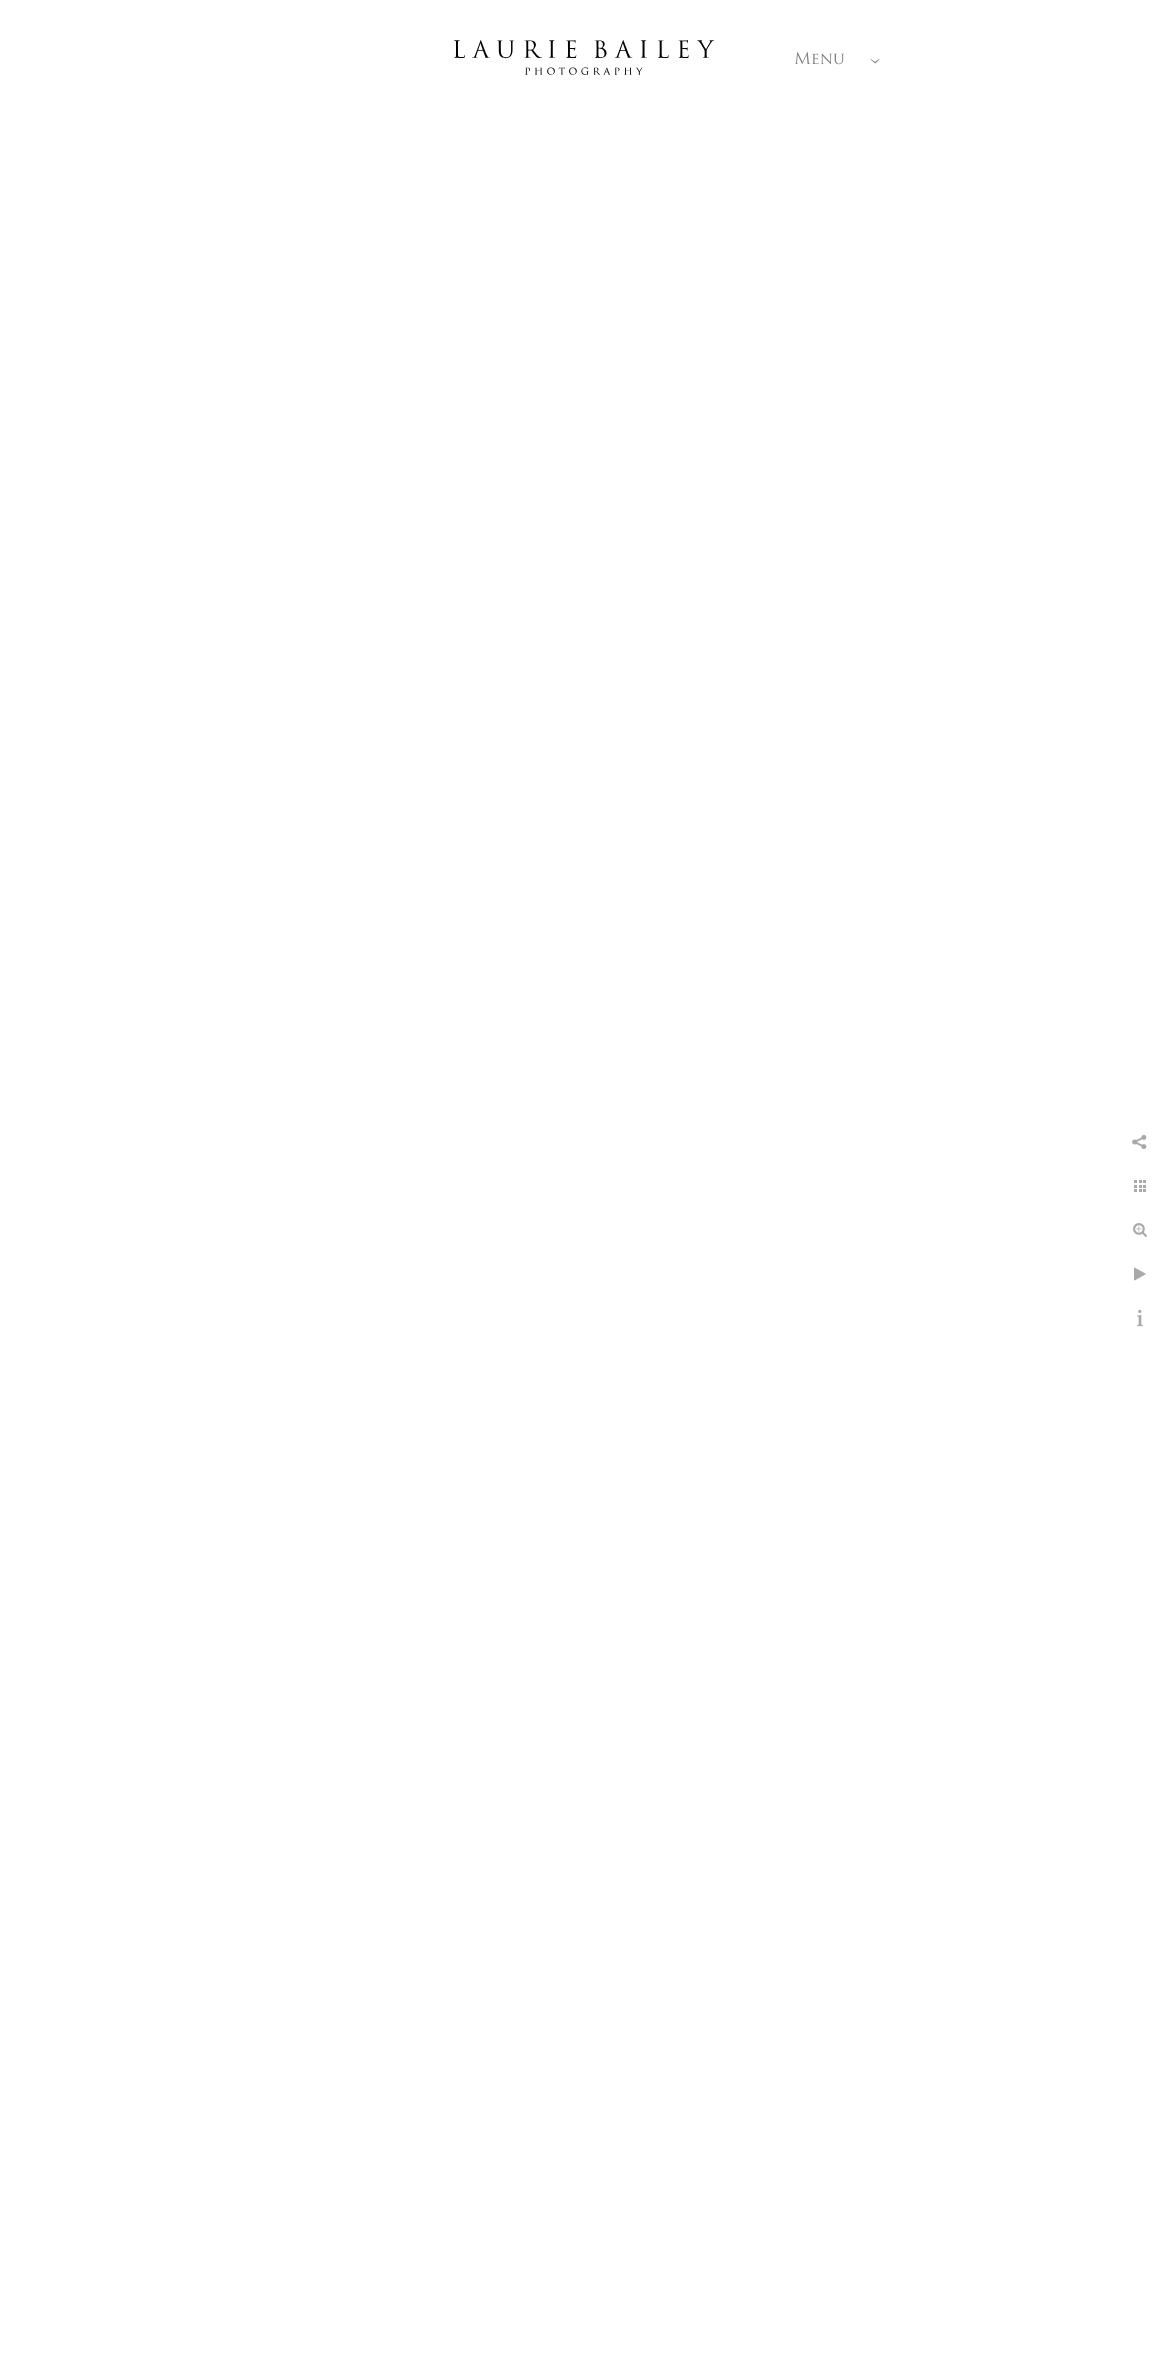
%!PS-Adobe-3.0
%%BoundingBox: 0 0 1167 2359
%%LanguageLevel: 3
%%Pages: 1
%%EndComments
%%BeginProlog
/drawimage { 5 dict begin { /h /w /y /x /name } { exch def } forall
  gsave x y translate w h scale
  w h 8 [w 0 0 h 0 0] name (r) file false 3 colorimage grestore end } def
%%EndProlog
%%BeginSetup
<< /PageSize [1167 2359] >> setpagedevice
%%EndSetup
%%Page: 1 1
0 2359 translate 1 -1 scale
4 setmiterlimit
1 setgray
0 0 1167 2359 rectfill
(images/1.raw) 454 40 260 35 drawimage
(images/2.raw) 795 51 49 14 drawimage
(images/3.raw) 870 58 10 6 drawimage
(images/4.raw) 1132 1134 15 16 drawimage
(images/5.raw) 1134 1180 12 12 drawimage
(images/6.raw) 1133 1223 14 14 drawimage
(images/7.raw) 1134 1267 12 14 drawimage
(images/8.raw) 1137 1309 6 18 drawimage
showpage
%%EOF
